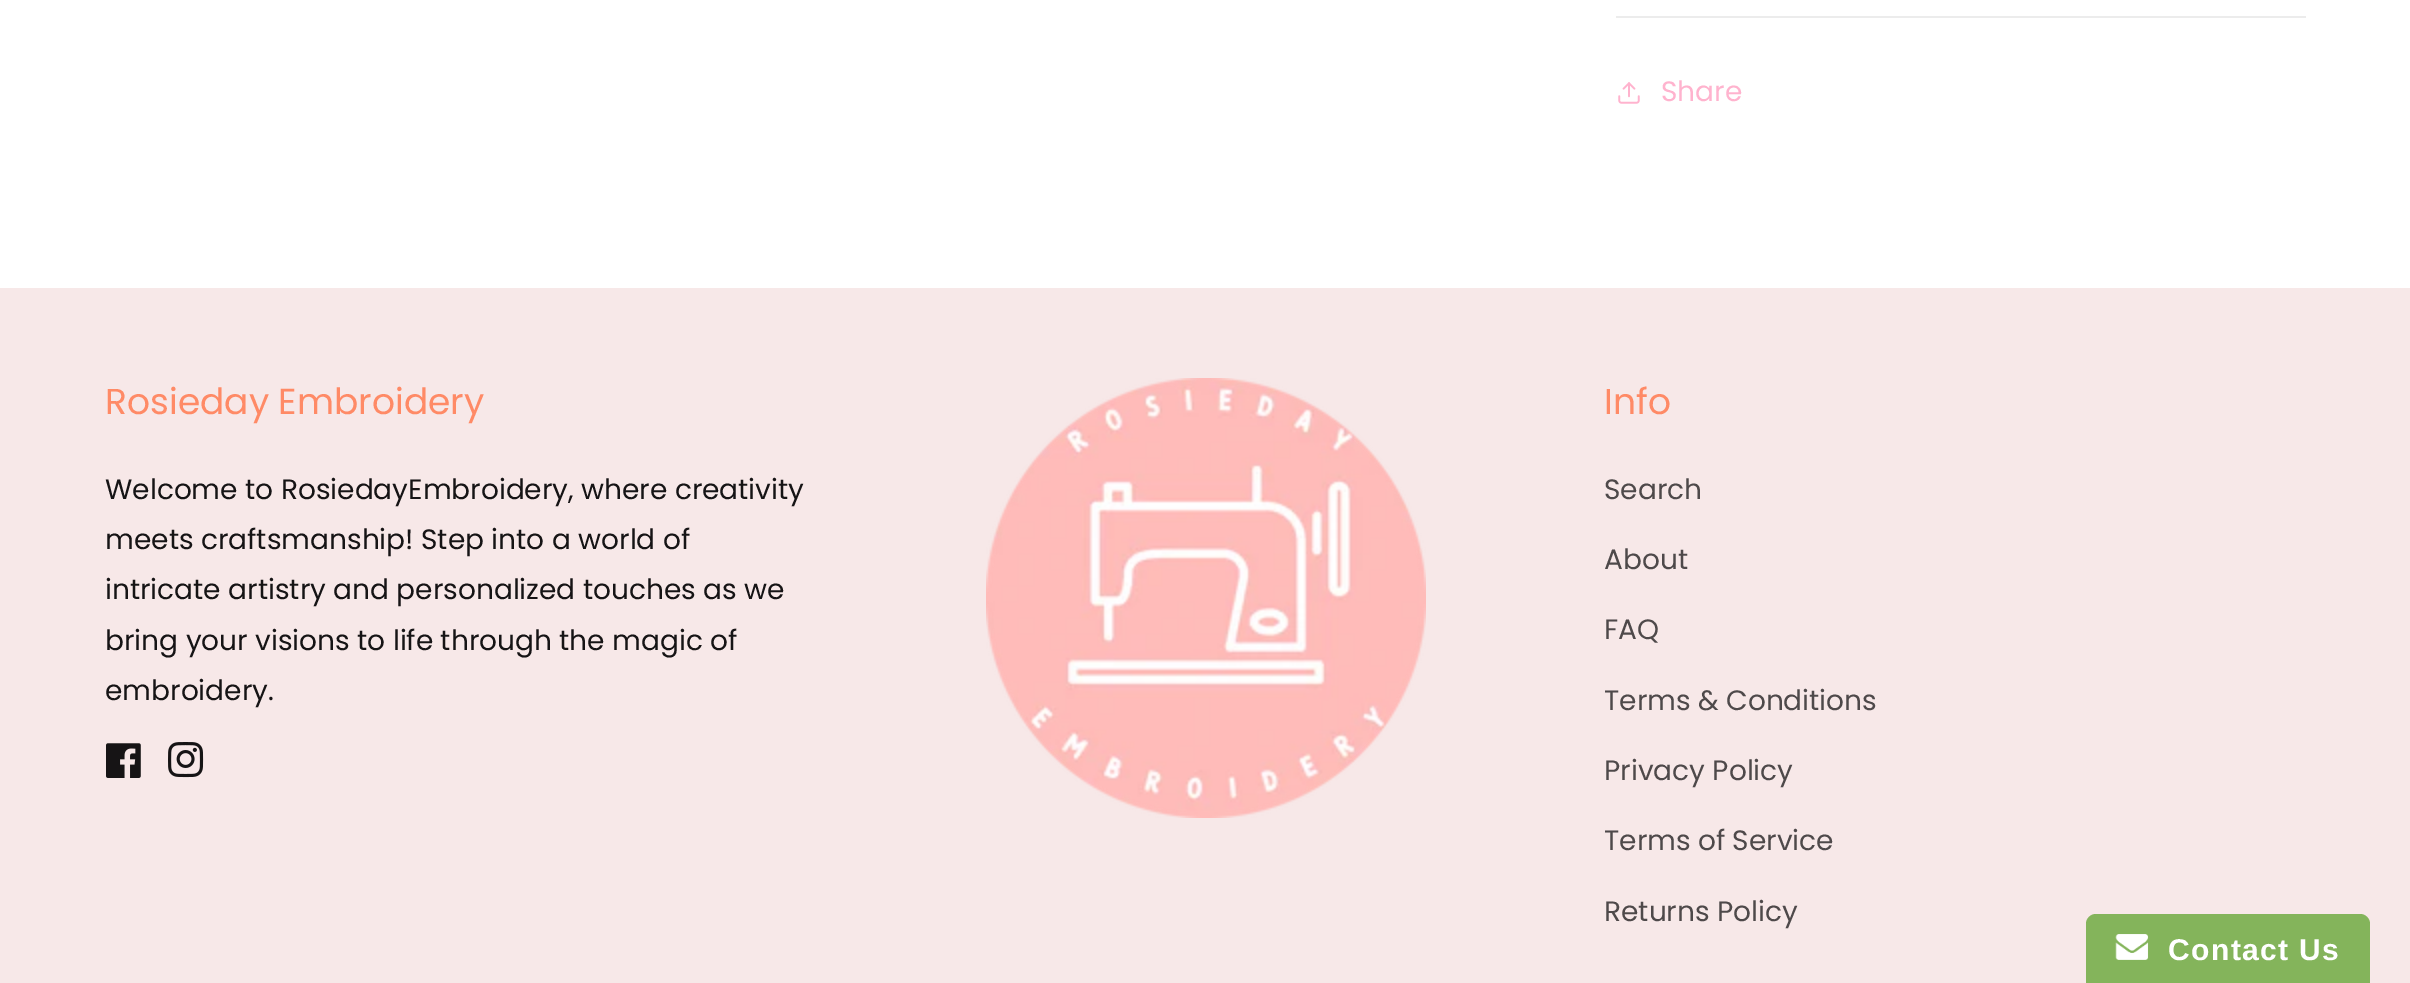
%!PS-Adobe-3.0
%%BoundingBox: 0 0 2410 983
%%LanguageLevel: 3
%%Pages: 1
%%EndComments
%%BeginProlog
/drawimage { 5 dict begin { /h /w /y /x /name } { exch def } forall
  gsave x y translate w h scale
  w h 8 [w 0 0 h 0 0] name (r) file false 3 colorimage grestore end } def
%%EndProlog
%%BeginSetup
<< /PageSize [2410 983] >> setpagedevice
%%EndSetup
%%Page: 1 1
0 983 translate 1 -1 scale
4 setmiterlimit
1 setgray
0 0 2410 983 rectfill
0.925 setgray
1616 16 690 2 rectfill
(images/1.raw) 1618 82 22 22 drawimage
0.969 0.91 0.91 setrgbcolor
0 288 2410 695 rectfill
(images/2.raw) 106 743 35 35 drawimage
(images/3.raw) 168 742 36 36 drawimage
(images/4.raw) 986 378 440 440 drawimage
0.518 0.706 0.357 setrgbcolor
newpath 2096 914 moveto 2360 914 lineto 2365.5 914 2370 918.5 2370 924 curveto 2370 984 lineto 2086 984 lineto 2086 924 lineto 2086 918.5 2090.5 914 2096 914 curveto closepath fill
(images/5.raw) 2115 934 34 26 drawimage
/Poppins-Regular [28 0 0 -28 0 0] selectfont
1 0.702 0.808 setrgbcolor
1661 101 moveto (Share) show
/Poppins-Regular [36 0 0 -36 0 0] selectfont
1 0.541 0.4 setrgbcolor
105 414 moveto (Rosieday Embroidery) show
/Poppins-Regular [28 0 0 -28 0 0] selectfont
0.086 0.078 0.082 setrgbcolor
105 499 moveto (Welcome to RosiedayEmbroidery, where creativity) show
105 549 moveto (meets craftsmanship! Step into a world of) show
105 599 moveto (intricate artistry and personalized touches as we) show
105 650 moveto (bring your visions to life through the magic of) show
105 700 moveto (embroidery.) show
/Poppins-Regular [36 0 0 -36 0 0] selectfont
1 0.541 0.4 setrgbcolor
1604 414 moveto (Info) show
/Poppins-Regular [28 0 0 -28 0 0] selectfont
0.306 0.286 0.29 setrgbcolor
1604 499 moveto (Search) show
1604 569 moveto (About) show
1604 639 moveto (FAQ) show
1604 710 moveto (Terms & Conditions) show
1604 780 moveto (Privacy Policy) show
1604 850 moveto (Terms of Service) show
1604 921 moveto (Returns Policy) show
/LiberationSans-Bold [30 0 0 -30 0 0] selectfont
1 setgray
2168 960 moveto 1.4 0 (Contact Us) ashow
showpage
%%EOF
